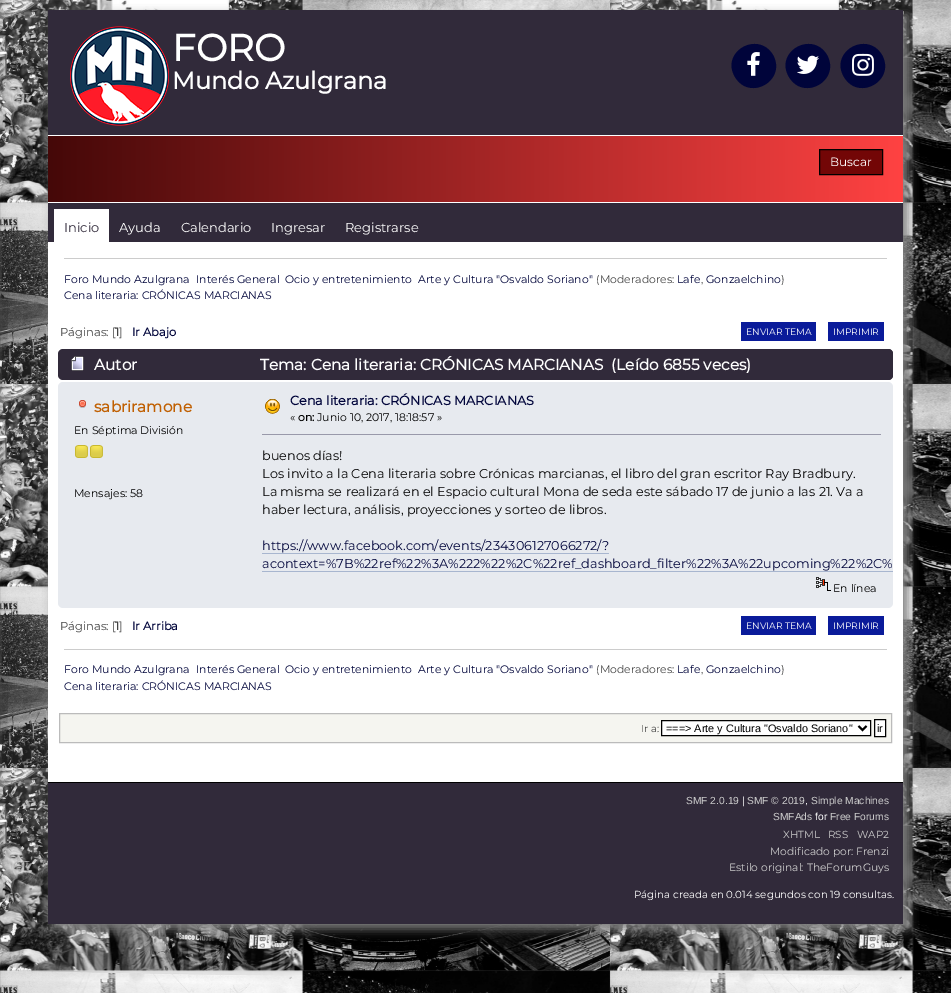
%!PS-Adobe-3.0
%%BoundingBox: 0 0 951 993
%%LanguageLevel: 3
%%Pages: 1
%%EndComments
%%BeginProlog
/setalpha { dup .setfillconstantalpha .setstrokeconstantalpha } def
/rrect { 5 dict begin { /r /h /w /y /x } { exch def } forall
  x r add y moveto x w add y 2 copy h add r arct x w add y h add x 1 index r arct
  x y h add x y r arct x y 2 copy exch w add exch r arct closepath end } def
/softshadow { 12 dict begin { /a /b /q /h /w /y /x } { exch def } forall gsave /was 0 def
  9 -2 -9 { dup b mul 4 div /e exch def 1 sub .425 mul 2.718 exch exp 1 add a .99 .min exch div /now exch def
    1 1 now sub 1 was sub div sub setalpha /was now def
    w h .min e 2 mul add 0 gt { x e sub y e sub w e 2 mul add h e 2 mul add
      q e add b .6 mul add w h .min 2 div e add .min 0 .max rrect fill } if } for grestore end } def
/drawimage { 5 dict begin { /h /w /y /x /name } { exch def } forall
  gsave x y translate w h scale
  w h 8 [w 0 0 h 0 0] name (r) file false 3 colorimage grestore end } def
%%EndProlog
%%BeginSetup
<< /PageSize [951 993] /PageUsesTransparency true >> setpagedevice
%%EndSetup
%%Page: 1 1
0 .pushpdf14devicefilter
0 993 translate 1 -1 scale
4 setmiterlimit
1 setgray
0 0 951 993 rectfill
(images/1.raw) 0 0 951 993 drawimage
0.502 setgray
53 15 855 914 0 5 1 softshadow
1 setgray
48 242 855 540 rectfill
gsave newpath 48 136 moveto 903 136 lineto 903 202 lineto 48 202 lineto closepath clip newpath
<< /ShadingType 2 /ColorSpace /DeviceRGB /Coords [48 106 903 106] /Extend [true true] /Function << /FunctionType 2 /Domain [0 1] /C0 [0.271 0.031 0.031] /C1 [1 0.259 0.259] /N 1 >> >> shfill grestore
0.192 0.165 0.227 setrgbcolor
48 10 855 125 rectfill
1 setgray
48 135 855 1 rectfill
(images/2.raw) 70 26 99 100 drawimage
0 0.016 0.227 setrgbcolor
newpath 773 55 moveto 787 80 750 102 735 77 curveto 720 52 758 30 773 55 curveto closepath fill
(images/3.raw) 747 52 13 24 drawimage
newpath 827 55 moveto 841 80 804 102 789 77 curveto 774 52 812 30 827 55 curveto closepath fill
(images/4.raw) 797 55 22 19 drawimage
newpath 882 55 moveto 896 80 859 102 844 77 curveto 829 52 867 30 882 55 curveto closepath fill
(images/5.raw) 852 53 22 23 drawimage
0.451 0.024 0.024 setrgbcolor
newpath 819.5 149.5 moveto 882.5 149.5 lineto 882.5 174.5 lineto 819.5 174.5 lineto closepath gsave fill grestore
0 setgray
stroke
0.192 0.165 0.227 setrgbcolor
48 203 855 39 rectfill
1 setgray
48 202 855 1 rectfill
54 209 55 33 rectfill
0 setgray
48 782 855 1 rectfill
0.8 setgray
64 258 823 1 rectfill
0.039 0.106 0.604 setrgbcolor
741 322 75 19 rectfill
828 322 56 19 rectfill
0.192 0.165 0.227 setrgbcolor
58 349 835 31 5 rrect fill
newpath 67 349 moveto 888 349 lineto 891 349 893 351 893 354 curveto 893 375 lineto 893 378 891 380 888 380 curveto 67 380 lineto closepath fill
(images/6.raw) 71 356 13 15 drawimage
0.906 0.918 0.937 setrgbcolor
58 382 835 226 5 rrect fill
(images/7.raw) 79 400 7 8 drawimage
(images/8.raw) 75 445 13 13 drawimage
(images/8.raw) 90 445 13 13 drawimage
(images/9.raw) 265 399 15 15 drawimage
0.6 0.6 0.667 setrgbcolor
262 434 619 1 rectfill
0.659 0.714 0.812 setrgbcolor
262 553 347 1 rectfill
262 571 631 1 rectfill
(images/10.raw) 816 577 15 14 drawimage
0.039 0.106 0.604 setrgbcolor
741 616 75 19 rectfill
828 616 56 19 rectfill
0.8 setgray
64 649 823 1 rectfill
0.961 0.961 0.941 setrgbcolor
newpath 59.5 713.5 moveto 891.5 713.5 lineto 891.5 742.5 lineto 59.5 742.5 lineto closepath gsave fill grestore
0.733 setgray
stroke
1 setgray
newpath 661.5 720.5 moveto 870.5 720.5 lineto 870.5 735.5 lineto 661.5 735.5 lineto closepath gsave fill grestore
0 setgray
stroke
2 setlinewidth
newpath 858.5 726 moveto 862.5 730 lineto 866.5 726 lineto stroke
1 setgray
newpath 874.5 719.5 moveto 885.5 719.5 lineto 885.5 736.5 lineto 874.5 736.5 lineto closepath gsave fill grestore
0 setgray
1 setlinewidth
stroke
0.192 0.165 0.227 setrgbcolor
48 783 855 141 rectfill
/Montserrat-Bold [37.5 0 0 -37.5 0 0] selectfont
1 setgray
172 61 moveto (FORO) show
/Montserrat-Bold [24 0 0 -24 0 0] selectfont
172 89 moveto (Mundo Azulgrana) show
/Montserrat-Thin [12 0 0 -12 0 0] selectfont
830 166 moveto (Buscar) show
/Montserrat-Thin [13 0 0 -13 0 0] selectfont
0.192 0.165 0.227 setrgbcolor
64 232 moveto (Inicio) show
1 setgray
119 232 moveto (Ayuda) show
181 232 moveto (Calendario) show
271 232 moveto (Ingresar) show
345 232 moveto (Registrarse) show
/Montserrat-Thin [10.9 0 0 -10.9 0 0] selectfont
0 0.016 0.227 setrgbcolor
64 283 moveto (Foro Mundo Azulgrana) show
196 283 moveto (Interés General) show
285 283 moveto (Ocio y entretenimiento) show
418 283 moveto (Arte y Cultura "Osvaldo Soriano") show
0.267 setgray
596 283 moveto (\(Moderadores:) show
0 0.016 0.227 setrgbcolor
677 283 moveto (Lafe) show
0.267 setgray
701 283 moveto (,) show
0 0.016 0.227 setrgbcolor
706 283 moveto (Gonzaelchino) show
0.267 setgray
781 283 moveto (\)) show
0 0.016 0.227 setrgbcolor
64 299 moveto (Cena literaria: CRÓNICAS MARCIANAS) show
/Montserrat-Thin [11.5 0 0 -11.5 0 0] selectfont
0.267 setgray
60 336 moveto (Páginas: [) show
/Montserrat-Bold [11.5 0 0 -11.5 0 0] selectfont
115 336 moveto (1) show
/Montserrat-Thin [11.5 0 0 -11.5 0 0] selectfont
119 336 moveto (]) show
/Montserrat-Bold [11.5 0 0 -11.5 0 0] selectfont
0 0.016 0.227 setrgbcolor
132 336 moveto (Ir Abajo) show
/Montserrat-Thin [9.25 0 0 -9.25 0 0] selectfont
1 setgray
746 335 moveto (ENVIAR TEMA) show
833 335 moveto (IMPRIMIR) show
/Montserrat-Bold [15.35 0 0 -15.35 0 0] selectfont
94 370 moveto (Autor) show
260 370 moveto (Tema: Cena literaria: CRÓNICAS MARCIANAS  \(Leído 6855 veces\)) show
0.753 0.376 0.008 setrgbcolor
94 412 moveto (sabriramone) show
/Montserrat-Thin [10.9 0 0 -10.9 0 0] selectfont
0 setgray
74 434 moveto (En Séptima División) show
74 497 moveto (Mensajes: 58) show
/Montserrat-Bold [12.8 0 0 -12.8 0 0] selectfont
0 0.016 0.227 setrgbcolor
290 405 moveto (Cena literaria: CRÓNICAS MARCIANAS) show
/Montserrat-Thin [10.9 0 0 -10.9 0 0] selectfont
0 setgray
290 421 moveto («) show
/Montserrat-Bold [10.9 0 0 -10.9 0 0] selectfont
298 421 moveto (on:) show
/Montserrat-Thin [10.9 0 0 -10.9 0 0] selectfont
317 421 moveto (Junio 10, 2017, 18:18:57 ») show
/Montserrat-Thin [12.8 0 0 -12.8 0 0] selectfont
262 460 moveto (buenos días!) show
262 478 moveto (Los invito a la Cena literaria sobre Crónicas marcianas, el libro del gran escritor Ray Bradbury.) show
262 496 moveto (La misma se realizará en el Espacio cultural Mona de seda este sábado 17 de junio a las 21. Va a) show
262 514 moveto (haber lectura, análisis, proyecciones y sorteo de libros.) show
0 0.016 0.227 setrgbcolor
262 550 moveto (https://www.facebook.com/events/234306127066272/?) show
262 568 moveto (acontext=%7B%22ref%22%3A%222%22%2C%22ref_dashboard_filter%22%3A%22upcoming%22%2C%) show
/Montserrat-Thin [10.9 0 0 -10.9 0 0] selectfont
0 setgray
833 592 moveto (En línea) show
/Montserrat-Thin [11.5 0 0 -11.5 0 0] selectfont
0.267 setgray
60 630 moveto (Páginas: [) show
/Montserrat-Bold [11.5 0 0 -11.5 0 0] selectfont
115 630 moveto (1) show
/Montserrat-Thin [11.5 0 0 -11.5 0 0] selectfont
119 630 moveto (]) show
/Montserrat-Bold [11.5 0 0 -11.5 0 0] selectfont
0 0.016 0.227 setrgbcolor
132 630 moveto (Ir Arriba) show
/Montserrat-Thin [9.25 0 0 -9.25 0 0] selectfont
1 setgray
746 629 moveto (ENVIAR TEMA) show
833 629 moveto (IMPRIMIR) show
/Montserrat-Thin [10.9 0 0 -10.9 0 0] selectfont
0 0.016 0.227 setrgbcolor
64 673 moveto (Foro Mundo Azulgrana) show
196 673 moveto (Interés General) show
285 673 moveto (Ocio y entretenimiento) show
418 673 moveto (Arte y Cultura "Osvaldo Soriano") show
0.267 setgray
596 673 moveto (\(Moderadores:) show
0 0.016 0.227 setrgbcolor
677 673 moveto (Lafe) show
0.267 setgray
701 673 moveto (,) show
0 0.016 0.227 setrgbcolor
706 673 moveto (Gonzaelchino) show
0.267 setgray
781 673 moveto (\)) show
0 0.016 0.227 setrgbcolor
64 690 moveto (Cena literaria: CRÓNICAS MARCIANAS) show
/Montserrat-Thin [10 0 0 -10 0 0] selectfont
0.267 setgray
641 732 moveto (Ir a:) show
/LiberationSans-Regular [10.9 0 0 -10.9 0 0] selectfont
0 setgray
666 732 moveto (===> Arte y Cultura "Osvaldo Soriano") show
877 732 moveto (ir) show
/LiberationSans-Regular [10.25 0 0 -10.25 0 0] selectfont
0.8 setgray
686 804 moveto (SMF 2.0.19) show
1 setgray
742 804 moveto (|) show
0.8 setgray
747 804 moveto (SMF © 2019) show
1 setgray
805 804 moveto (,) show
0.8 setgray
811 804 moveto (Simple Machines) show
773 820 moveto (SMFAds) show
1 setgray
815 820 moveto (for) show
0.8 setgray
830 820 moveto (Free Forums) show
/Montserrat-Thin [10.25 0 0 -10.25 0 0] selectfont
783 838 moveto (XHTML) show
828 838 moveto (RSS) show
857 838 moveto (WAP2) show
/Montserrat-Thin [10.7 0 0 -10.7 0 0] selectfont
770 855 moveto (Modificado por: Frenzi) show
729 871 moveto (Estilo original: TheForumGuys) show
/Montserrat-Thin [10.25 0 0 -10.25 0 0] selectfont
1 setgray
634 898 moveto (Página creada en 0.014 segundos con 19 consultas.) show
.poppdf14devicefilter showpage
%%EOF
